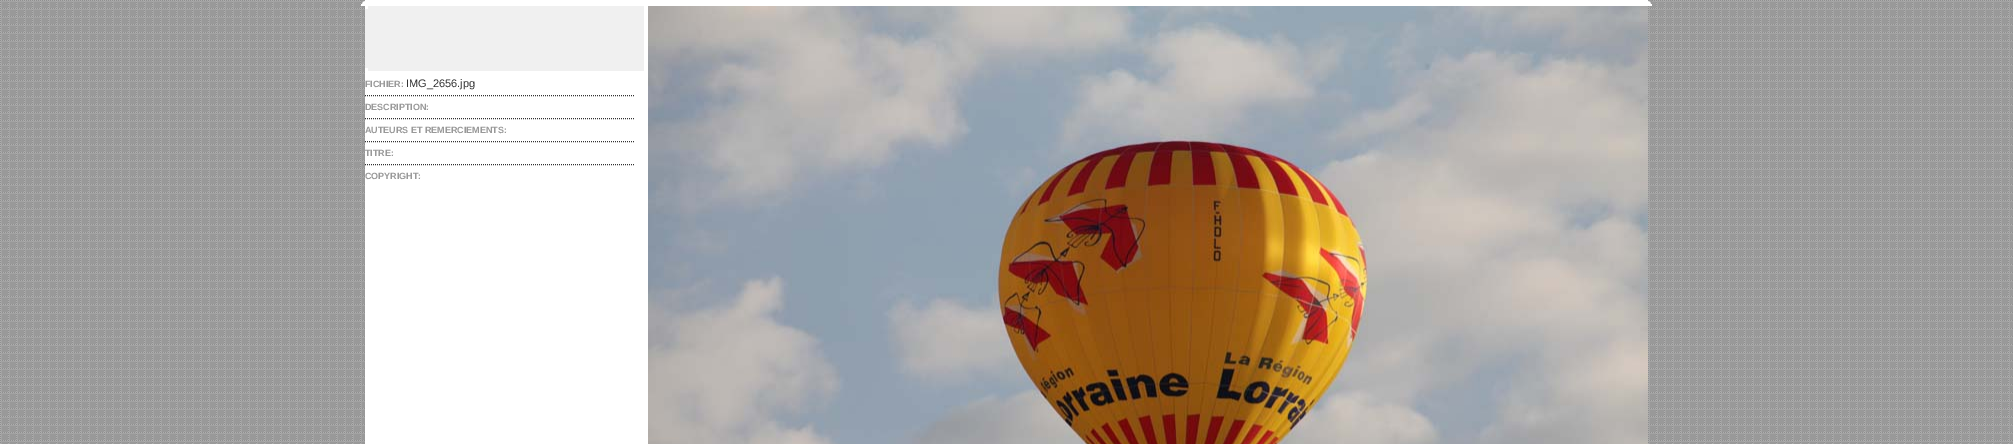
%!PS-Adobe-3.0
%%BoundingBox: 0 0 2013 444
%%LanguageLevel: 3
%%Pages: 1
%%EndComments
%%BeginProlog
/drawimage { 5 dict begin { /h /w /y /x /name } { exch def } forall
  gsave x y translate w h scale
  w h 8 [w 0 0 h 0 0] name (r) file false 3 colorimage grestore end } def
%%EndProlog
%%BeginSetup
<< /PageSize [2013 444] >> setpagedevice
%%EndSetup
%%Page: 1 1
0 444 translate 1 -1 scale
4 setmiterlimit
1 setgray
0 0 2013 444 rectfill
(images/1.raw) 0 0 2013 444 drawimage
(images/2.raw) 361 0 4 4 drawimage
365 0 1283 4 rectfill
(images/3.raw) 1648 0 4 4 drawimage
361 4 1291 2 rectfill
365 6 283 438 rectfill
0.941 setgray
365 6 279 4 rectfill
1 setgray
365 6 3 3 rectfill
0.941 setgray
365 10 279 57 rectfill
365 67 279 4 rectfill
1 setgray
365 68 3 3 rectfill
0.2 setgray
[1 1] 0 setdash
newpath 365 95.5 moveto 634 95.5 lineto stroke
newpath 365 118.5 moveto 634 118.5 lineto stroke
newpath 365 141.5 moveto 634 141.5 lineto stroke
newpath 365 164.5 moveto 634 164.5 lineto stroke
(images/4.raw) 648 6 1000 438 drawimage
/LiberationSans-Bold [9 0 0 -9 0 0] selectfont
0.6 setgray
365 87 moveto (FICHIER:) show
/LiberationSans-Regular [11 0 0 -11 0 0] selectfont
0.2 setgray
406 87 moveto (IMG_2656.jpg) show
/LiberationSans-Bold [9 0 0 -9 0 0] selectfont
0.6 setgray
365 110 moveto (DESCRIPTION:) show
365 133 moveto (AUTEURS ET REMERCIEMENTS:) show
365 156 moveto (TITRE:) show
365 179 moveto (COPYRIGHT:) show
showpage
%%EOF
